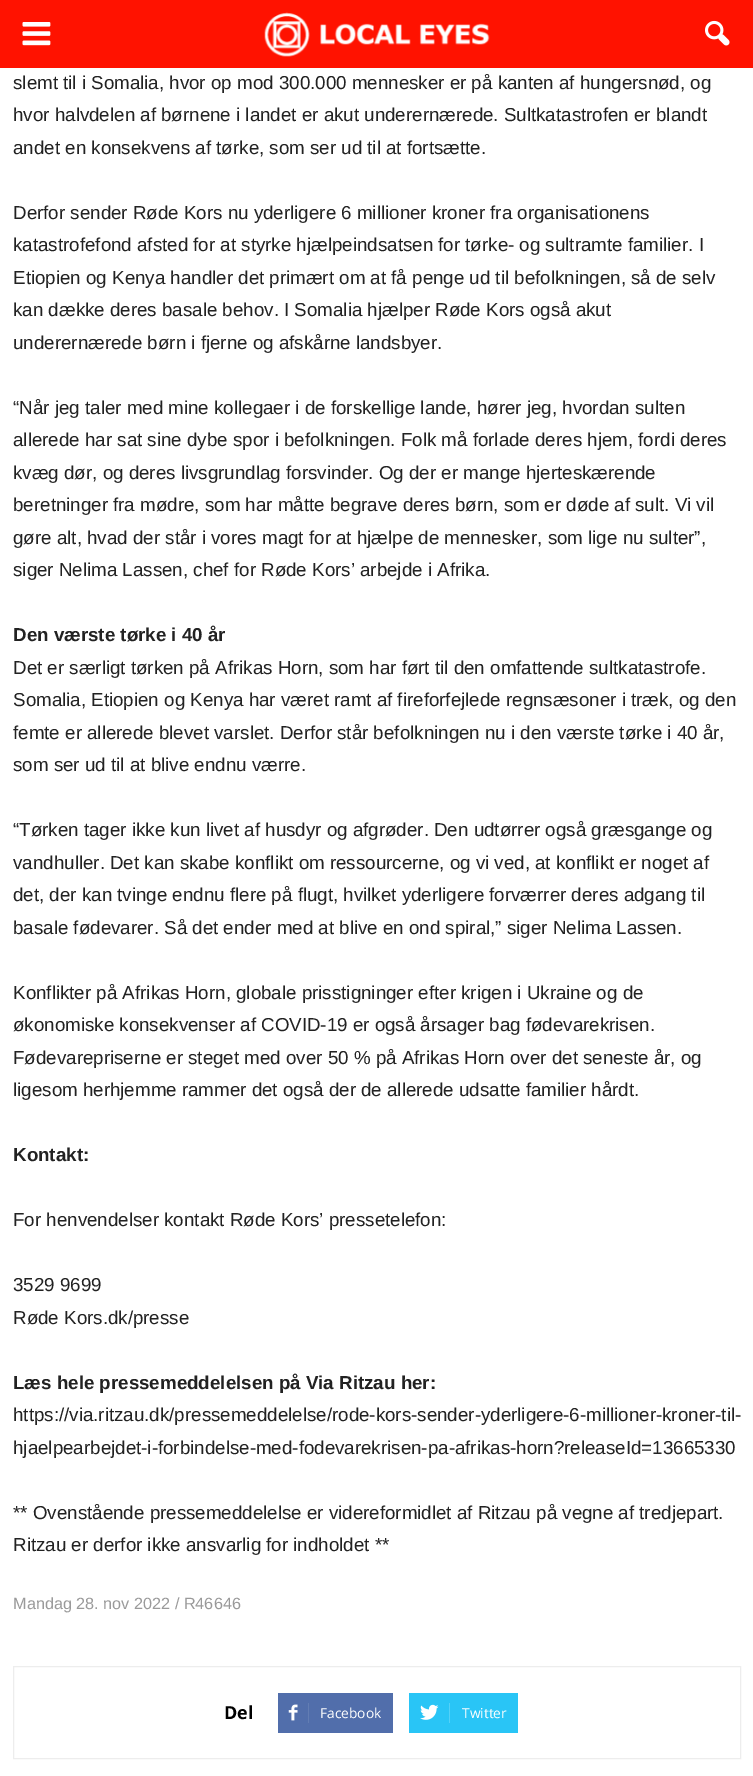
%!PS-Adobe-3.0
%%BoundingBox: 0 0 753 1776
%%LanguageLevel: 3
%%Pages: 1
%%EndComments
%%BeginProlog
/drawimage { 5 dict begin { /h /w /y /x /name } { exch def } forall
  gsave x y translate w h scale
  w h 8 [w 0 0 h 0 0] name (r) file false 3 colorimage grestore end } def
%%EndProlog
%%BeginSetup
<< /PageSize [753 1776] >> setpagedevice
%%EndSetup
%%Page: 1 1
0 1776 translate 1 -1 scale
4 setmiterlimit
1 setgray
0 0 753 1776 rectfill
1 0.071 0 setrgbcolor
0 0 753 68 rectfill
(images/1.raw) 22 22 29 24 drawimage
(images/2.raw) 264 12 226 45 drawimage
(images/3.raw) 705 20 25 26 drawimage
0.929 setgray
13.5 1666.5 727 92 rectstroke
0.318 0.431 0.671 setrgbcolor
278 1693 115 40 rectfill
(images/4.raw) 288 1704 10 17 drawimage
0.384 0.49 0.702 setrgbcolor
308 1703 1 20 rectfill
0.161 0.773 0.965 setrgbcolor
409 1693 109 40 rectfill
(images/5.raw) 420 1704 19 16 drawimage
0.329 0.82 0.973 setrgbcolor
449 1703 1 20 rectfill
/LiberationSans-Regular [18.75 0 0 -18.75 0 0] selectfont
0.133 setgray
13 89 moveto (slemt til i Somalia, hvor op mod 300.000 mennesker er på kanten af hungersnød, og) show
13 121 moveto (hvor halvdelen af børnene i landet er akut underernærede. Sultkatastrofen er blandt) show
13 154 moveto (andet en konsekvens af tørke, som ser ud til at fortsætte.) show
13 219 moveto (Derfor sender Røde Kors nu yderligere 6 millioner kroner fra organisationens) show
13 251 moveto (katastrofefond afsted for at styrke hjælpeindsatsen for tørke- og sultramte familier. I) show
13 284 moveto (Etiopien og Kenya handler det primært om at få penge ud til befolkningen, så de selv) show
13 316 moveto (kan dække deres basale behov. I Somalia hjælper Røde Kors også akut) show
13 349 moveto (underernærede børn i fjerne og afskårne landsbyer.) show
13 414 moveto (“Når jeg taler med mine kollegaer i de forskellige lande, hører jeg, hvordan sulten) show
13 446 moveto (allerede har sat sine dybe spor i befolkningen. Folk må forlade deres hjem, fordi deres) show
13 479 moveto (kvæg dør, og deres livsgrundlag forsvinder. Og der er mange hjerteskærende) show
13 511 moveto (beretninger fra mødre, som har måtte begrave deres børn, som er døde af sult. Vi vil) show
13 544 moveto (gøre alt, hvad der står i vores magt for at hjælpe de mennesker, som lige nu sulter”,) show
13 576 moveto (siger Nelima Lassen, chef for Røde Kors’ arbejde i Afrika.) show
/LiberationSans-Bold [18.75 0 0 -18.75 0 0] selectfont
13 641 moveto (Den værste tørke i 40 år) show
/LiberationSans-Regular [18.75 0 0 -18.75 0 0] selectfont
13 674 moveto (Det er særligt tørken på Afrikas Horn, som har ført til den omfattende sultkatastrofe.) show
13 706 moveto (Somalia, Etiopien og Kenya har været ramt af fireforfejlede regnsæsoner i træk, og den) show
13 739 moveto (femte er allerede blevet varslet. Derfor står befolkningen nu i den værste tørke i 40 år,) show
13 771 moveto (som ser ud til at blive endnu værre.) show
13 836 moveto (“Tørken tager ikke kun livet af husdyr og afgrøder. Den udtørrer også græsgange og) show
13 869 moveto (vandhuller. Det kan skabe konflikt om ressourcerne, og vi ved, at konflikt er noget af) show
13 901 moveto (det, der kan tvinge endnu flere på flugt, hvilket yderligere forværrer deres adgang til) show
13 934 moveto (basale fødevarer. Så det ender med at blive en ond spiral,” siger Nelima Lassen.) show
13 999 moveto (Konflikter på Afrikas Horn, globale prisstigninger efter krigen i Ukraine og de) show
13 1031 moveto (økonomiske konsekvenser af COVID-19 er også årsager bag fødevarekrisen.) show
13 1064 moveto (Fødevarepriserne er steget med over 50 % på Afrikas Horn over det seneste år, og) show
13 1096 moveto (ligesom herhjemme rammer det også der de allerede udsatte familier hårdt.) show
/LiberationSans-Bold [18.75 0 0 -18.75 0 0] selectfont
13 1161 moveto (Kontakt:) show
/LiberationSans-Regular [18.75 0 0 -18.75 0 0] selectfont
13 1226 moveto (For henvendelser kontakt Røde Kors’ pressetelefon:) show
13 1291 moveto (3529 9699) show
13 1324 moveto (Røde Kors.dk/presse) show
/LiberationSans-Bold [18.75 0 0 -18.75 0 0] selectfont
13 1389 moveto (Læs hele pressemeddelelsen på Via Ritzau her:) show
/LiberationSans-Regular [18.75 0 0 -18.75 0 0] selectfont
13 1421 moveto (https://via.ritzau.dk/pressemeddelelse/rode-kors-sender-yderligere-6-millioner-kroner-til-) show
13 1454 moveto (hjaelpearbejdet-i-forbindelse-med-fodevarekrisen-pa-afrikas-horn?releaseId=13665330) show
13 1519 moveto (** Ovenstående pressemeddelelse er videreformidlet af Ritzau på vegne af tredjepart.) show
13 1551 moveto (Ritzau er derfor ikke ansvarlig for indholdet **) show
/LiberationSans-Regular [16.25 0 0 -16.25 0 0] selectfont
0.604 setgray
13 1609 moveto (Mandag 28. nov 2022 / R46646) show
/OpenSans-Bold [18 0 0 -18 0 0] selectfont
0 setgray
224 1719 moveto (Del) show
/OpenSans-Regular [13.75 0 0 -13.75 0 0] selectfont
1 setgray
320 1718 moveto (Facebook) show
462 1718 moveto (Twitter) show
showpage
%%EOF
